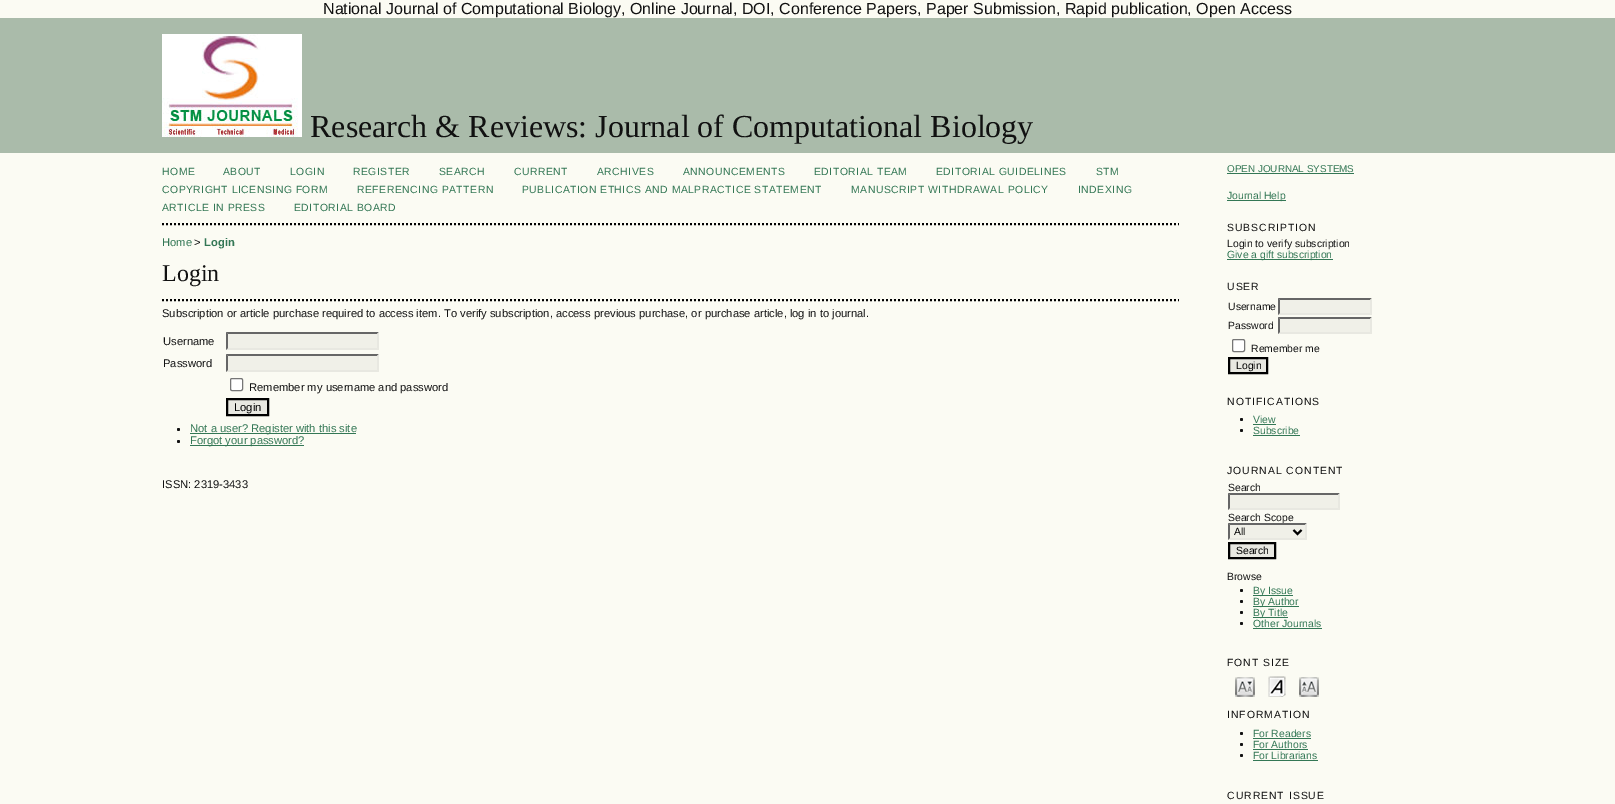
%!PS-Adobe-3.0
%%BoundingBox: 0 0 1615 804
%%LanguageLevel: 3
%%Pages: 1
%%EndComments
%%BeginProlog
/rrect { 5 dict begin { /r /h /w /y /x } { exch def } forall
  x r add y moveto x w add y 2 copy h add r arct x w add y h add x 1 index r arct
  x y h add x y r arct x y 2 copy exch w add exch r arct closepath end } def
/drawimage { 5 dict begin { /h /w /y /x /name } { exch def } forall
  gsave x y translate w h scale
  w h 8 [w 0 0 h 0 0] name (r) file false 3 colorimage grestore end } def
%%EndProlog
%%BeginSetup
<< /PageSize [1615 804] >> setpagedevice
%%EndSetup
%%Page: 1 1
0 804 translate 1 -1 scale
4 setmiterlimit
0.984 0.984 0.953 setrgbcolor
0 0 1615 804 rectfill
0.667 0.733 0.667 setrgbcolor
0 18 1615 135 rectfill
(images/1.raw) 162 34 140 103 drawimage
0 setgray
2 setlinewidth
[2 2] 0 setdash
newpath 162 224 moveto 1179 224 lineto stroke
newpath 162 300 moveto 1179 300 lineto stroke
0.941 0.941 0.91 setrgbcolor
226 332 153 18 rectfill
0.4 setgray
newpath 226 332 moveto 379 332 lineto 377 334 lineto 228 334 lineto closepath fill
0.91 0.91 0.882 setrgbcolor
newpath 379 332 moveto 379 350 lineto 377 348 lineto 377 334 lineto closepath fill
newpath 379 350 moveto 226 350 lineto 228 348 lineto 377 348 lineto closepath fill
0.4 setgray
newpath 226 350 moveto 226 332 lineto 228 334 lineto 228 348 lineto closepath fill
0.941 0.941 0.91 setrgbcolor
226 354 153 18 rectfill
0.4 setgray
newpath 226 354 moveto 379 354 lineto 377 356 lineto 228 356 lineto closepath fill
0.91 0.91 0.882 setrgbcolor
newpath 379 354 moveto 379 372 lineto 377 370 lineto 377 356 lineto closepath fill
newpath 379 372 moveto 226 372 lineto 228 370 lineto 377 370 lineto closepath fill
0.4 setgray
newpath 226 372 moveto 226 354 lineto 228 356 lineto 228 370 lineto closepath fill
1 setgray
230.5 378.5 12 12 1.5 rrect gsave fill grestore
0.463 setgray
1 setlinewidth
[] 0 setdash
stroke
0.91 0.91 0.882 setrgbcolor
newpath 227 399 moveto 268 399 lineto 268 415 lineto 227 415 lineto closepath gsave fill grestore
0 setgray
2 setlinewidth
stroke
0.067 setgray
newpath 178.5 429.5 1.5 0 360 arc closepath fill
0.2 0.467 0.333 setrgbcolor
190 433 166 1 rectfill
0.067 setgray
newpath 178.5 441.5 1.5 0 360 arc closepath fill
0.2 0.467 0.333 setrgbcolor
190 445 114 1 rectfill
1227 173 127 1 rectfill
1227 200 59 1 rectfill
1227 259 106 1 rectfill
0.941 0.941 0.91 setrgbcolor
1278 298 94 17 rectfill
0.4 setgray
newpath 1278 298 moveto 1372 298 lineto 1370 300 lineto 1280 300 lineto closepath fill
0.91 0.91 0.882 setrgbcolor
newpath 1372 298 moveto 1372 315 lineto 1370 313 lineto 1370 300 lineto closepath fill
newpath 1372 315 moveto 1278 315 lineto 1280 313 lineto 1370 313 lineto closepath fill
0.4 setgray
newpath 1278 315 moveto 1278 298 lineto 1280 300 lineto 1280 313 lineto closepath fill
0.941 0.941 0.91 setrgbcolor
1278 317 94 17 rectfill
0.4 setgray
newpath 1278 317 moveto 1372 317 lineto 1370 319 lineto 1280 319 lineto closepath fill
0.91 0.91 0.882 setrgbcolor
newpath 1372 317 moveto 1372 334 lineto 1370 332 lineto 1370 319 lineto closepath fill
newpath 1372 334 moveto 1278 334 lineto 1280 332 lineto 1370 332 lineto closepath fill
0.4 setgray
newpath 1278 334 moveto 1278 317 lineto 1280 319 lineto 1280 332 lineto closepath fill
1 setgray
1232.5 339.5 12 12 1.5 rrect gsave fill grestore
0.463 setgray
1 setlinewidth
stroke
0.91 0.91 0.882 setrgbcolor
newpath 1229 358 moveto 1267 358 lineto 1267 373 lineto 1229 373 lineto closepath gsave fill grestore
0 setgray
2 setlinewidth
stroke
0.067 setgray
newpath 1241.5 419.5 1.5 0 360 arc closepath fill
0.2 0.467 0.333 setrgbcolor
1253 424 23 1 rectfill
0.067 setgray
newpath 1241.5 430.5 1.5 0 360 arc closepath fill
0.2 0.467 0.333 setrgbcolor
1253 435 47 1 rectfill
0.941 0.941 0.91 setrgbcolor
1228 493 112 17 rectfill
0.4 setgray
newpath 1228 493 moveto 1340 493 lineto 1338 495 lineto 1230 495 lineto closepath fill
0.91 0.91 0.882 setrgbcolor
newpath 1340 493 moveto 1340 510 lineto 1338 508 lineto 1338 495 lineto closepath fill
newpath 1340 510 moveto 1228 510 lineto 1230 508 lineto 1338 508 lineto closepath fill
0.4 setgray
newpath 1228 510 moveto 1228 493 lineto 1230 495 lineto 1230 508 lineto closepath fill
0.91 0.91 0.882 setrgbcolor
newpath 1229 543 moveto 1275 543 lineto 1275 558 lineto 1229 558 lineto closepath gsave fill grestore
0 setgray
stroke
0.067 setgray
newpath 1241.5 590.5 1.5 0 360 arc closepath fill
0.2 0.467 0.333 setrgbcolor
1253 595 40 1 rectfill
0.067 setgray
newpath 1241.5 601.5 1.5 0 360 arc closepath fill
0.2 0.467 0.333 setrgbcolor
1253 606 46 1 rectfill
0.067 setgray
newpath 1241.5 612.5 1.5 0 360 arc closepath fill
0.2 0.467 0.333 setrgbcolor
1253 617 35 1 rectfill
0.067 setgray
newpath 1241.5 623.5 1.5 0 360 arc closepath fill
0.2 0.467 0.333 setrgbcolor
1253 628 69 1 rectfill
(images/2.raw) 1235 677 20 20 drawimage
(images/3.raw) 1268 676 18 21 drawimage
(images/4.raw) 1299 677 20 20 drawimage
0.067 setgray
newpath 1241.5 733.5 1.5 0 360 arc closepath fill
0.2 0.467 0.333 setrgbcolor
1253 738 58 1 rectfill
0.067 setgray
newpath 1241.5 744.5 1.5 0 360 arc closepath fill
0.2 0.467 0.333 setrgbcolor
1253 749 55 1 rectfill
0.067 setgray
newpath 1241.5 755.5 1.5 0 360 arc closepath fill
0.2 0.467 0.333 setrgbcolor
1253 760 65 1 rectfill
/LiberationSans-Regular [16 0 0 -16 0 0] selectfont
0.067 setgray
323 14 moveto (National Journal of Computational Biology, Online Journal, DOI, Conference Papers, Paper Submission, Rapid publication, Open Access) show
/LiberationSerif-Regular [32 0 0 -32 0 0] selectfont
310 137 moveto (Research & Reviews: Journal of Computational Biology) show
/LiberationSans-Regular [10.4 0 0 -10.4 0 0] selectfont
0.2 0.467 0.333 setrgbcolor
162 175 moveto 0.5 0 (HOME) ashow
223 175 moveto 0.5 0 (ABOUT) ashow
290 175 moveto 0.5 0 (LOGIN) ashow
353 175 moveto 0.5 0 (REGISTER) ashow
439 175 moveto 0.5 0 (SEARCH) ashow
514 175 moveto 0.5 0 (CURRENT) ashow
597 175 moveto 0.5 0 (ARCHIVES) ashow
683 175 moveto 0.5 0 (ANNOUNCEMENTS) ashow
814 175 moveto 0.5 0 (EDITORIAL TEAM) ashow
936 175 moveto 0.5 0 (EDITORIAL GUIDELINES) ashow
1096 175 moveto 0.5 0 (STM) ashow
162 193 moveto 0.5 0 (COPYRIGHT LICENSING FORM) ashow
357 193 moveto 0.5 0 (REFERENCING PATTERN) ashow
522 193 moveto 0.5 0 (PUBLICATION ETHICS AND MALPRACTICE STATEMENT) ashow
851 193 moveto 0.5 0 (MANUSCRIPT WITHDRAWAL POLICY) ashow
1078 193 moveto 0.5 0 (INDEXING) ashow
162 211 moveto 0.5 0 (ARTICLE IN PRESS) ashow
294 211 moveto 0.5 0 (EDITORIAL BOARD) ashow
/LiberationSans-Regular [11.2 0 0 -11.2 0 0] selectfont
162 246 moveto (Home) show
0.067 setgray
194 246 moveto (>) show
/LiberationSans-Bold [11.2 0 0 -11.2 0 0] selectfont
0.2 0.467 0.333 setrgbcolor
204 246 moveto (Login) show
/LiberationSerif-Regular [24 0 0 -24 0 0] selectfont
0.067 setgray
162 281 moveto (Login) show
/LiberationSans-Regular [11.2 0 0 -11.2 0 0] selectfont
162 317 moveto (Subscription or article purchase required to access item. To verify subscription, access previous purchase, or purchase article, log in to journal.) show
163 345 moveto (Username) show
163 367 moveto (Password) show
249 391 moveto (Remember my username and password) show
0 setgray
234 411 moveto (Login) show
0.2 0.467 0.333 setrgbcolor
190 432 moveto (Not a user? Register with this site) show
190 444 moveto (Forgot your password?) show
0.067 setgray
162 488 moveto (ISSN: 2319-3433) show
/LiberationSans-Regular [9.9 0 0 -9.9 0 0] selectfont
0.2 0.467 0.333 setrgbcolor
1227 172 moveto (OPEN JOURNAL SYSTEMS) show
/LiberationSans-Regular [10.4 0 0 -10.4 0 0] selectfont
1227 199 moveto (Journal Help) show
0.067 setgray
1227 231 moveto 1 0 (SUBSCRIPTION) ashow
1227 247 moveto (Login to verify subscription) show
0.2 0.467 0.333 setrgbcolor
1227 258 moveto (Give a gift subscription) show
0.067 setgray
1227 290 moveto 1 0 (USER) ashow
1228 310 moveto (Username) show
1228 329 moveto (Password) show
1251 352 moveto (Remember me) show
0 setgray
1236 369 moveto (Login) show
0.067 setgray
1227 405 moveto 1 0 (NOTIFICATIONS) ashow
0.2 0.467 0.333 setrgbcolor
1253 423 moveto (View) show
1253 434 moveto (Subscribe) show
0.067 setgray
1227 474 moveto 1 0 (JOURNAL CONTENT) ashow
1228 491 moveto (Search) show
1228 521 moveto (Search Scope) show
0.941 0.941 0.91 setrgbcolor
1228 523 79 17 rectfill
0.4 setgray
newpath 1228 523 moveto 1307 523 lineto 1305 525 lineto 1230 525 lineto closepath fill
0.91 0.91 0.882 setrgbcolor
newpath 1307 523 moveto 1307 540 lineto 1305 538 lineto 1305 525 lineto closepath fill
newpath 1307 540 moveto 1228 540 lineto 1230 538 lineto 1305 538 lineto closepath fill
0.4 setgray
newpath 1228 540 moveto 1228 523 lineto 1230 525 lineto 1230 538 lineto closepath fill
0 setgray
newpath 1293.5 530 moveto 1297.5 534 lineto 1301.5 530 lineto stroke
1234 535 moveto (All) show
1236 554 moveto (Search) show
0.067 setgray
1227 580 moveto (Browse) show
0.2 0.467 0.333 setrgbcolor
1253 594 moveto (By Issue) show
1253 605 moveto (By Author) show
1253 616 moveto (By Title) show
1253 627 moveto (Other Journals) show
0.067 setgray
1227 666 moveto 1 0 (FONT SIZE) ashow
1227 718 moveto 1 0 (INFORMATION) ashow
0.2 0.467 0.333 setrgbcolor
1253 737 moveto (For Readers) show
1253 748 moveto (For Authors) show
1253 759 moveto (For Librarians) show
0.067 setgray
1227 799 moveto 1 0 (CURRENT ISSUE) ashow
showpage
%%EOF
